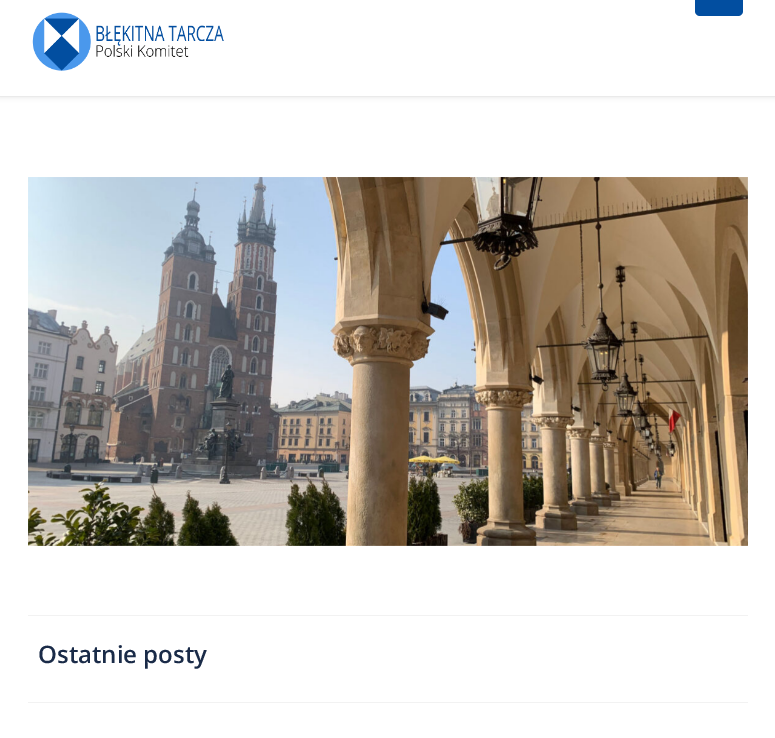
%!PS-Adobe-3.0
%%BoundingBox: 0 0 775 738
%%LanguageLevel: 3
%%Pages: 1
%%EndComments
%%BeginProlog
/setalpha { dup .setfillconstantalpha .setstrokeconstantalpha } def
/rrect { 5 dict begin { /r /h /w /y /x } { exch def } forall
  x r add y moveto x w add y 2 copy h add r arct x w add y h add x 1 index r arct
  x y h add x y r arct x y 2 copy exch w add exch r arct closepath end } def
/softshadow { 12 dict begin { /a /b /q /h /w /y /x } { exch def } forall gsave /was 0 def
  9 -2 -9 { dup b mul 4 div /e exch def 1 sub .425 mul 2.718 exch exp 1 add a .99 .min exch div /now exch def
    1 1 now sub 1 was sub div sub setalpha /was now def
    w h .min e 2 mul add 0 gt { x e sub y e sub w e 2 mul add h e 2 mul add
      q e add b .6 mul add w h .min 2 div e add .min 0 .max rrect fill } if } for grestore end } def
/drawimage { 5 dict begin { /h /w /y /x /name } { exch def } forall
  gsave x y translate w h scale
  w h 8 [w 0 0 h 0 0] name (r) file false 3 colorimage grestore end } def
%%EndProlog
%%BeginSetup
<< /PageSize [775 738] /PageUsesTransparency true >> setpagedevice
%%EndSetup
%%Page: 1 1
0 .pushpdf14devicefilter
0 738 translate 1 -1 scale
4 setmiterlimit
1 setgray
0 0 775 738 rectfill
0 setgray
0 1 775 97 0 2 0.07 softshadow
1 setgray
0 0 775 96 rectfill
0.918 setgray
0 96 775 1 rectfill
0.008 0.306 0.627 setrgbcolor
695 -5 48 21 5 rrect fill
(images/1.raw) 32 12 192 59 drawimage
(images/2.raw) 28 177 720 369 drawimage
(images/3.raw) 747 177 1 369 drawimage
0.949 setgray
28 615 720 1 rectfill
28 702 720 1 rectfill
/OpenSans-SemiBold [24 0 0 -24 0 0] selectfont
0.102 0.169 0.282 setrgbcolor
38 663 moveto (Ostatnie posty) show
.poppdf14devicefilter showpage
%%EOF
